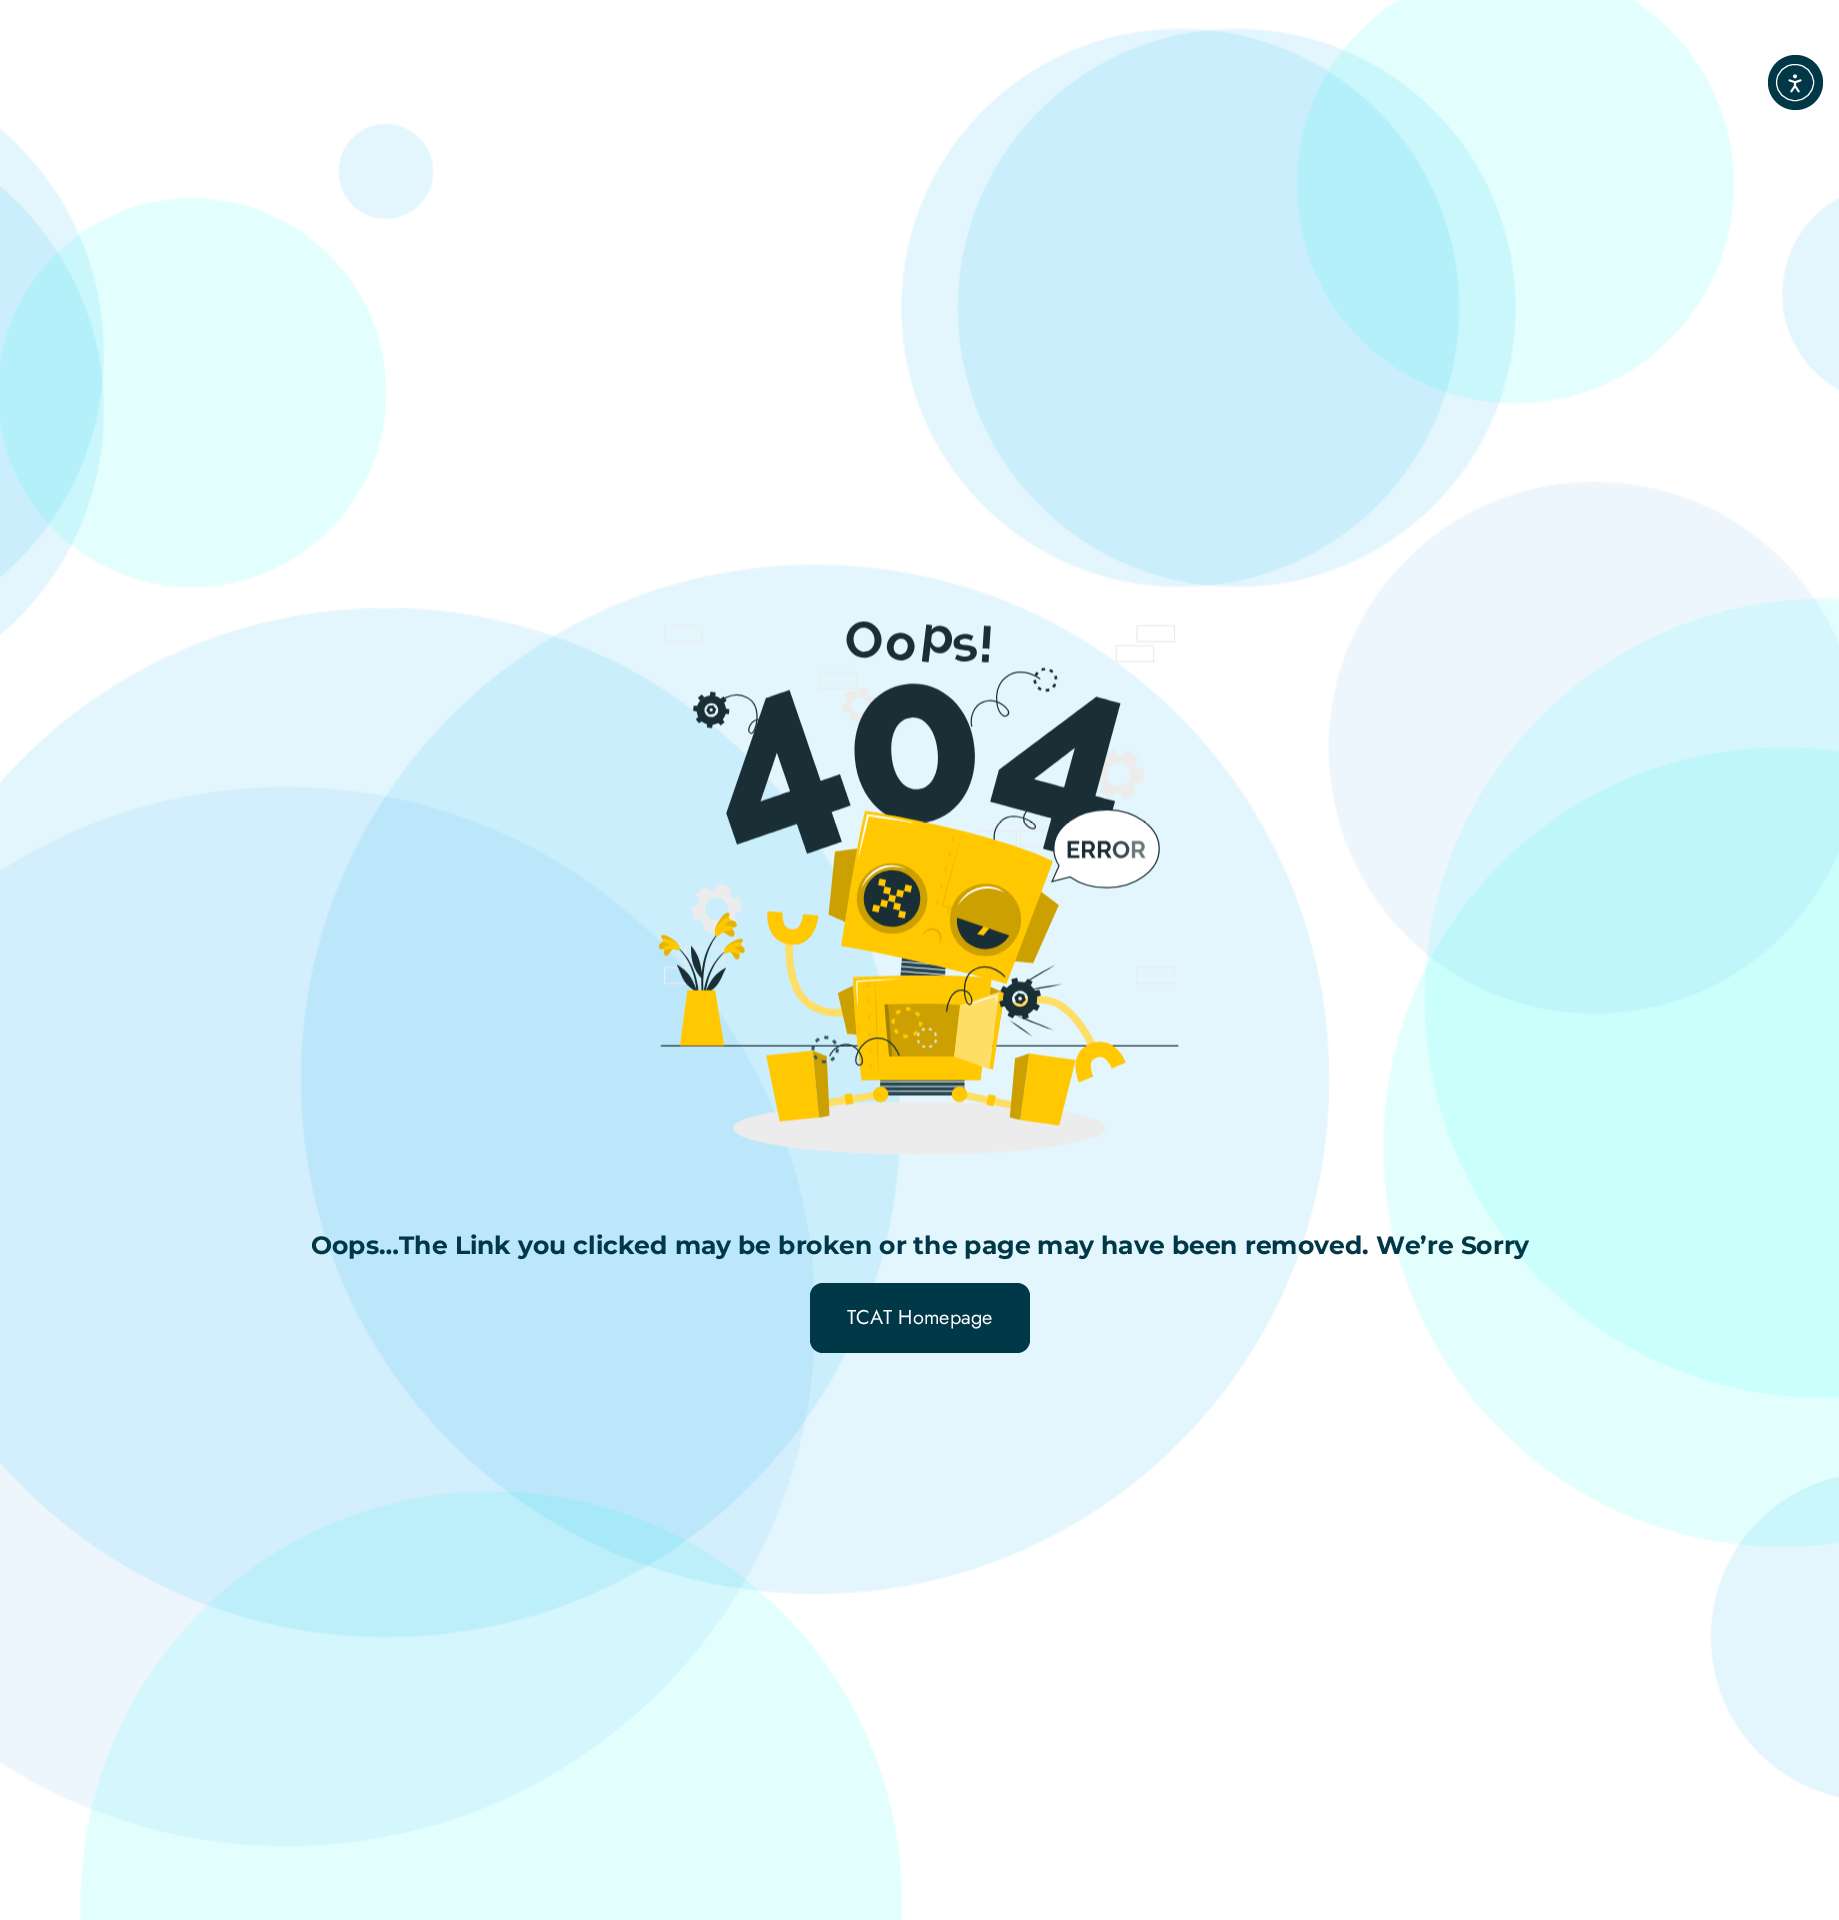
%!PS-Adobe-3.0
%%BoundingBox: 0 0 1839 1920
%%LanguageLevel: 3
%%Pages: 1
%%EndComments
%%BeginProlog
/rrect { 5 dict begin { /r /h /w /y /x } { exch def } forall
  x r add y moveto x w add y 2 copy h add r arct x w add y h add x 1 index r arct
  x y h add x y r arct x y 2 copy exch w add exch r arct closepath end } def
/drawimage { 5 dict begin { /h /w /y /x /name } { exch def } forall
  gsave x y translate w h scale
  w h 8 [w 0 0 h 0 0] name (r) file false 3 colorimage grestore end } def
%%EndProlog
%%BeginSetup
<< /PageSize [1839 1920] >> setpagedevice
%%EndSetup
%%Page: 1 1
0 1920 translate 1 -1 scale
4 setmiterlimit
1 setgray
0 0 1839 1920 rectfill
(images/1.raw) 0 0 1839 1920 drawimage
0 0.22 0.282 setrgbcolor
newpath 1795.5 82.5 27.5 0 360 arc closepath fill
1 setgray
1776.5 64.5 37 36 18 rrect stroke
(images/2.raw) 1788 74 14 19 drawimage
(images/3.raw) 658 621 521 534 drawimage
0 0.22 0.282 setrgbcolor
810 1283 220 70 13 rrect fill
/Montserrat-Bold [25 0 0 -25 0 0] selectfont
311 1254 moveto (Oops…The Link you clicked may be broken or the page may have been removed. We’re Sorry) show
/Jost-Regular [20 0 0 -20 0 0] selectfont
1 setgray
847 1324 moveto (TCAT Homepage) show
showpage
%%EOF
